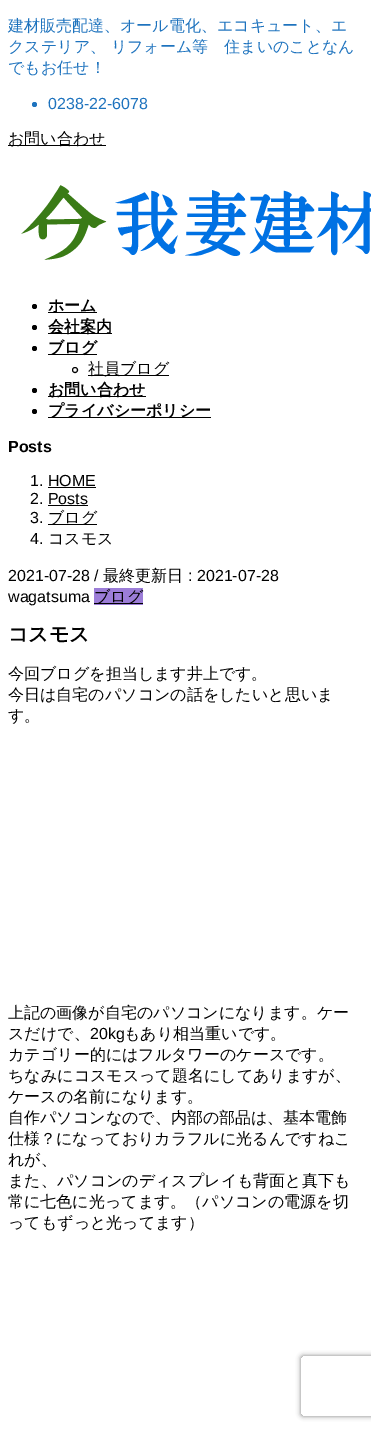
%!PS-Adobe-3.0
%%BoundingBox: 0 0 371 1430
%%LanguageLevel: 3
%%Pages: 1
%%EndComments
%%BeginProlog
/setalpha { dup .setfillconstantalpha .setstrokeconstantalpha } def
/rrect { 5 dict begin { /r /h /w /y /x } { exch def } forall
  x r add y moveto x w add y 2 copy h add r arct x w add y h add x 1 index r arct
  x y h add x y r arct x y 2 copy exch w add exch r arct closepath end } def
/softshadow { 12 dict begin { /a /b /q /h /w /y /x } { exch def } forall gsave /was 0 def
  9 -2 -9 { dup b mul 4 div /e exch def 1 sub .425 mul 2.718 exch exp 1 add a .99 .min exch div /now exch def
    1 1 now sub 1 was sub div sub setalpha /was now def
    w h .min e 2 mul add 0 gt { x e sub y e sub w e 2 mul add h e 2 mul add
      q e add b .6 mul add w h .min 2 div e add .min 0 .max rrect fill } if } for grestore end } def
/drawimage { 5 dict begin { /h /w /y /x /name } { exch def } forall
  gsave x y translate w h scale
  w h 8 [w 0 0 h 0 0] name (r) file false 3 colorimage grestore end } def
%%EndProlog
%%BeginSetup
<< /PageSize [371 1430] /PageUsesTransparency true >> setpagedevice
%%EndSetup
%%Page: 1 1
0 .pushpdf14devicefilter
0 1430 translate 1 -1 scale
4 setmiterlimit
1 setgray
0 0 371 1430 rectfill
0.118 0.451 0.745 setrgbcolor
newpath 34.5 104.5 2.5 0 360 arc closepath fill
0 setgray
8 145 98 1 rectfill
(images/1.raw) 21 185 350 75 drawimage
newpath 34.5 306.5 2.5 0 360 arc closepath fill
48 312 49 1 rectfill
newpath 34.5 327.5 2.5 0 360 arc closepath fill
48 333 64 1 rectfill
newpath 34.5 348.5 2.5 0 360 arc closepath fill
48 354 49 1 rectfill
newpath 75 370 2.5 0 360 arc closepath stroke
88 375 81 1 rectfill
newpath 34.5 390.5 2.5 0 360 arc closepath fill
48 396 98 1 rectfill
newpath 34.5 411.5 2.5 0 360 arc closepath fill
48 417 163 1 rectfill
48 487 48 1 rectfill
48 505 40 1 rectfill
48 524 49 1 rectfill
0.612 0.49 0.847 setrgbcolor
94 588 49 17 rectfill
0 setgray
94 603 49 1 rectfill
gsave
newpath 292 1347 moveto 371 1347 lineto 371 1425 lineto 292 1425 lineto closepath 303 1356 moveto 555 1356 lineto 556 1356 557 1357 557 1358 curveto 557 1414 lineto 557 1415 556 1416 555 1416 curveto 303 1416 lineto 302 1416 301 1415 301 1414 curveto 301 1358 lineto 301 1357 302 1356 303 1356 curveto closepath eoclip newpath
0.502 setgray
301 1356 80 60 2 2.5 1 softshadow
grestore
/WenQuanYiZenHei-Medium [16 0 0 -16 0 0] selectfont
0.118 0.451 0.745 setrgbcolor
8 31 moveto (建材販売配達、オール電化、エコキュート、エ) show
8 52 moveto (クステリア、 リフォーム等　住まいのことなん) show
8 73 moveto (でもお任せ！) show
/LiberationSans-Regular [16 0 0 -16 0 0] selectfont
48 109 moveto (0238-22-6078) show
/WenQuanYiZenHei-Medium [16 0 0 -16 0 0] selectfont
0 setgray
8 144 moveto (お問い合わせ) show
/WenQuanYiZenHei-Bold [16 0 0 -16 0 0] selectfont
48 311 moveto (ホーム) show
48 332 moveto (会社案内) show
48 353 moveto (ブログ) show
/WenQuanYiZenHei-Medium [16 0 0 -16 0 0] selectfont
88 374 moveto (社員ブログ) show
/WenQuanYiZenHei-Bold [16 0 0 -16 0 0] selectfont
48 395 moveto (お問い合わせ) show
48 416 moveto (プライバシーポリシー) show
/LiberationSans-Bold [16 0 0 -16 0 0] selectfont
8 452 moveto (Posts) show
/LiberationSans-Regular [16 0 0 -16 0 0] selectfont
30 486 moveto (1. HOME) show
30 504 moveto (2. Posts) show
30 523 moveto (3.) show
/WenQuanYiZenHei-Medium [16 0 0 -16 0 0] selectfont
48 523 moveto (ブログ) show
/LiberationSans-Regular [16 0 0 -16 0 0] selectfont
30 544 moveto (4.) show
/WenQuanYiZenHei-Medium [16 0 0 -16 0 0] selectfont
48 544 moveto (コスモス) show
/LiberationSans-Regular [16 0 0 -16 0 0] selectfont
8 581 moveto (2021-07-28 /) show
/WenQuanYiZenHei-Medium [16 0 0 -16 0 0] selectfont
103 581 moveto (最終更新日) show
/LiberationSans-Regular [16 0 0 -16 0 0] selectfont
188 581 moveto (: 2021-07-28) show
8 602 moveto (wagatsuma) show
/WenQuanYiZenHei-Medium [16 0 0 -16 0 0] selectfont
94 602 moveto (ブログ) show
/WenQuanYiZenHei-Bold [20 0 0 -20 0 0] selectfont
8 641 moveto (コスモス) show
/WenQuanYiZenHei-Medium [16 0 0 -16 0 0] selectfont
8 679 moveto (今回ブログを担当します井上です。) show
8 700 moveto (今日は自宅のパソコンの話をしたいと思いま) show
8 721 moveto (す。) show
8 1018 moveto (上記の画像が自宅のパソコンになります。ケー) show
8 1039 moveto (スだけで、) show
/LiberationSans-Regular [16 0 0 -16 0 0] selectfont
90 1039 moveto (20kg) show
/WenQuanYiZenHei-Medium [16 0 0 -16 0 0] selectfont
124 1039 moveto (もあり相当重いです。) show
8 1060 moveto (カテゴリー的にはフルタワーのケースです。) show
8 1081 moveto (ちなみにコスモスって題名にしてありますが、) show
8 1102 moveto (ケースの名前になります。) show
8 1123 moveto (自作パソコンなので、内部の部品は、基本電飾) show
8 1144 moveto (仕様？になっておりカラフルに光るんですねこ) show
8 1165 moveto (れが、) show
8 1186 moveto (また、パソコンのディスプレイも背面と真下も) show
8 1207 moveto (常に七色に光ってます。（パソコンの電源を切) show
8 1228 moveto (ってもずっと光ってます）) show
.poppdf14devicefilter showpage
%%EOF
